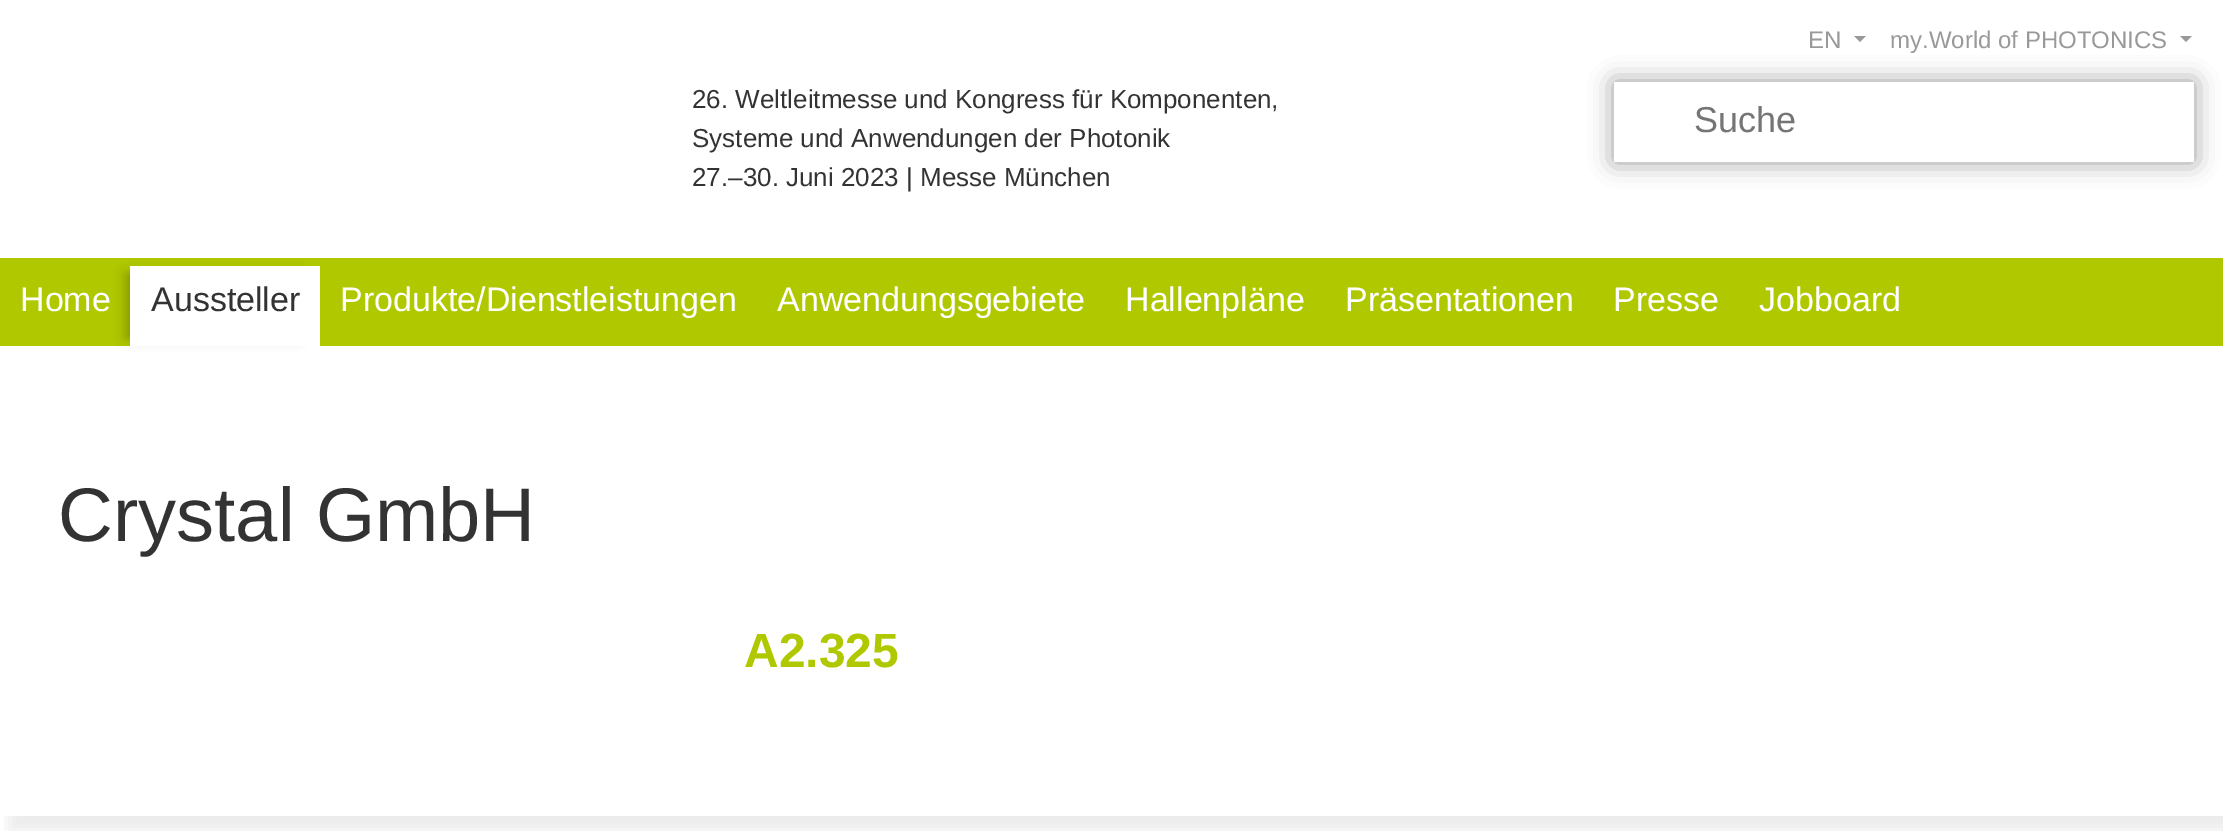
%!PS-Adobe-3.0
%%BoundingBox: 0 0 2223 831
%%LanguageLevel: 3
%%Pages: 1
%%EndComments
%%BeginProlog
/setalpha { dup .setfillconstantalpha .setstrokeconstantalpha } def
/rrect { 5 dict begin { /r /h /w /y /x } { exch def } forall
  x r add y moveto x w add y 2 copy h add r arct x w add y h add x 1 index r arct
  x y h add x y r arct x y 2 copy exch w add exch r arct closepath end } def
/softshadow { 12 dict begin { /a /b /q /h /w /y /x } { exch def } forall gsave /was 0 def
  9 -2 -9 { dup b mul 4 div /e exch def 1 sub .425 mul 2.718 exch exp 1 add a .99 .min exch div /now exch def
    1 1 now sub 1 was sub div sub setalpha /was now def
    w h .min e 2 mul add 0 gt { x e sub y e sub w e 2 mul add h e 2 mul add
      q e add b .6 mul add w h .min 2 div e add .min 0 .max rrect fill } if } for grestore end } def
%%EndProlog
%%BeginSetup
<< /PageSize [2223 831] /PageUsesTransparency true >> setpagedevice
%%EndSetup
%%Page: 1 1
0 .pushpdf14devicefilter
0 831 translate 1 -1 scale
4 setmiterlimit
1 setgray
0 0 2223 831 rectfill
0.6 setgray
newpath 1854 36 moveto 1866 36 lineto 1860 42 lineto closepath fill
newpath 2180 36 moveto 2192 36 lineto 2186 42 lineto closepath fill
gsave
newpath 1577 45 moveto 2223 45 lineto 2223 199 lineto 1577 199 lineto closepath 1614 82 moveto 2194 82 lineto 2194 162 lineto 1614 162 lineto closepath eoclip newpath
0 setgray
1614 82 580 80 0 12 0.4 softshadow
grestore
0.686 0.784 0 setrgbcolor
0 258 2223 88 rectfill
0 setgray
126 274 174 64 0 6 0.25 softshadow
1 setgray
130 266 190 80 rectfill
gsave
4 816 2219 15 rectclip
0.2 setgray
10 790 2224 40 0 8 0.1 softshadow
grestore
/LiberationSans-Regular [24 0 0 -24 0 0] selectfont
0.6 setgray
1808 48 moveto (EN) show
1890 48 moveto (my.World of PHOTONICS) show
/LiberationSans-Regular [26 0 0 -26 0 0] selectfont
0.2 setgray
692 108 moveto (26. Weltleitmesse und Kongress für Komponenten,) show
692 147 moveto (Systeme und Anwendungen der Photonik) show
692 186 moveto (27.–30. Juni 2023 | Messe München) show
/LiberationSans-Regular [36 0 0 -36 0 0] selectfont
0.459 setgray
1694 132 moveto (Suche) show
/LiberationSans-Regular [34 0 0 -34 0 0] selectfont
1 setgray
20 311 moveto (Home) show
0.2 setgray
151 311 moveto (Aussteller) show
1 setgray
340 311 moveto (Produkte/Dienstleistungen) show
777 311 moveto (Anwendungsgebiete) show
1125 311 moveto (Hallenpläne) show
1345 311 moveto (Präsentationen) show
1613 311 moveto (Presse) show
1759 311 moveto (Jobboard) show
/LiberationSans-Regular [76 0 0 -76 0 0] selectfont
0.2 setgray
58 541 moveto (Crystal GmbH) show
/LiberationSans-Bold [48 0 0 -48 0 0] selectfont
0.686 0.784 0 setrgbcolor
744 667 moveto (A2.325) show
.poppdf14devicefilter showpage
%%EOF
